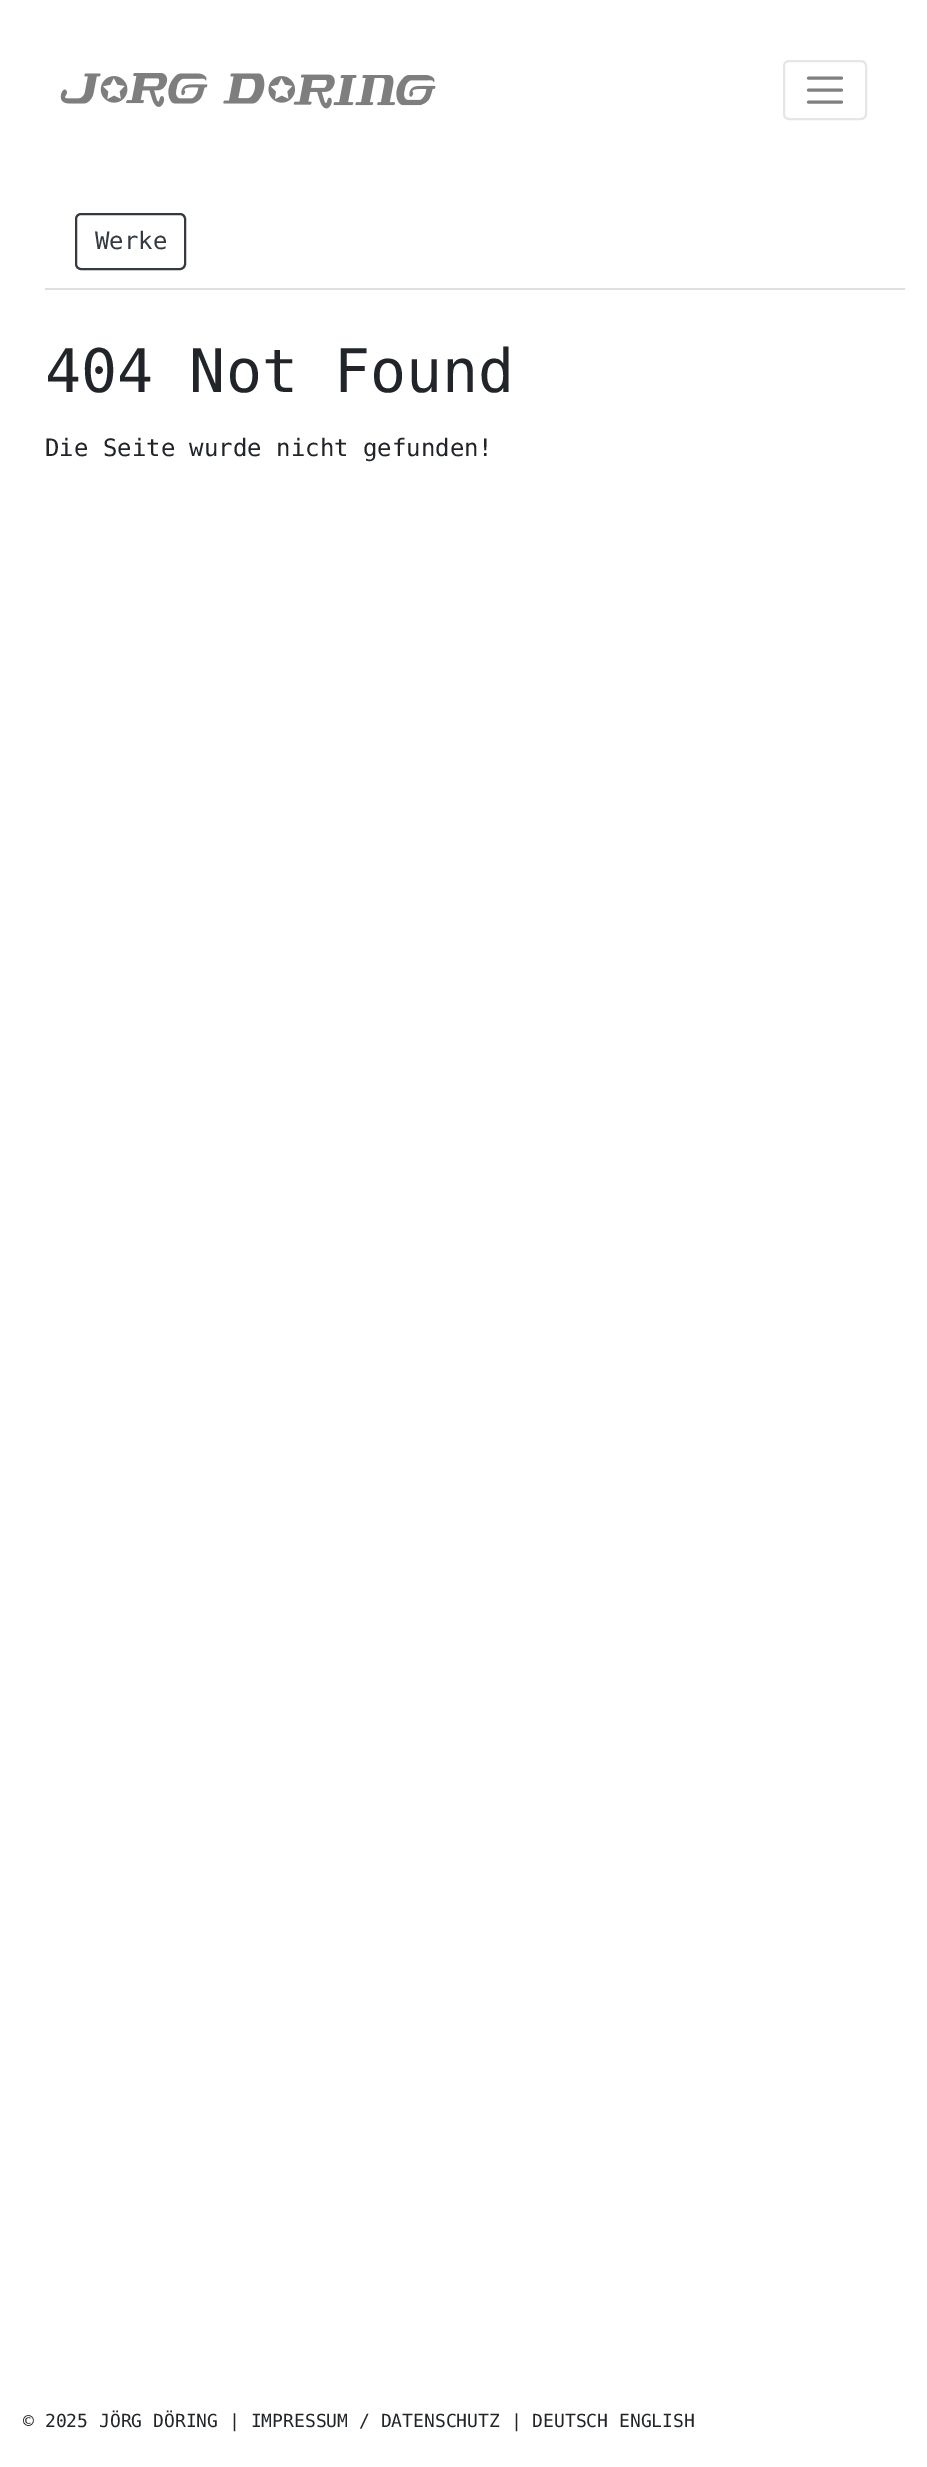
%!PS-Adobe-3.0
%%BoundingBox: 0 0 927 2467
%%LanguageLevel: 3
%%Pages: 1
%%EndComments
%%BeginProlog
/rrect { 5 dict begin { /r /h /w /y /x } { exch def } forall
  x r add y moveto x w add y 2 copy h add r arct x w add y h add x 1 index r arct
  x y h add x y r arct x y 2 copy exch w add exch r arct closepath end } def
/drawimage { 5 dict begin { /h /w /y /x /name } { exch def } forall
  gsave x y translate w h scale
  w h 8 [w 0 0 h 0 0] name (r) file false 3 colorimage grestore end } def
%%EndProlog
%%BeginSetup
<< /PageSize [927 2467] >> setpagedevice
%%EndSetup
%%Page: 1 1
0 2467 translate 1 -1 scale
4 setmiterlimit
1 setgray
0 0 927 2467 rectfill
(images/1.raw) 60 73 376 36 drawimage
0.902 setgray
2 setlinewidth
784 61 82 58 5 rrect stroke
0.502 setgray
3 setlinewidth
1 setlinecap
newpath 808.5 78 moveto 841.5 78 lineto 808.5 90 moveto 841.5 90 lineto 808.5 102 moveto 841.5 102 lineto stroke
0.875 setgray
45 288 860 2 rectfill
0.204 0.227 0.251 setrgbcolor
2 setlinewidth
0 setlinecap
76 214 109 55 5 rrect stroke
/DejaVuSansMono-Regular [24 0 0 -24 0 0] selectfont
95 249 moveto (Werke) show
/DejaVuSansMono-Regular [60 0 0 -60 0 0] selectfont
0.129 0.145 0.161 setrgbcolor
45 392 moveto (404 Not Found) show
/DejaVuSansMono-Regular [24 0 0 -24 0 0] selectfont
45 456 moveto (Die Seite wurde nicht gefunden!) show
/DejaVuSansMono-Regular [18 0 0 -18 0 0] selectfont
23 2427 moveto (© 2025 JÖRG DÖRING | IMPRESSUM / DATENSCHUTZ | DEUTSCH ENGLISH) show
showpage
%%EOF
